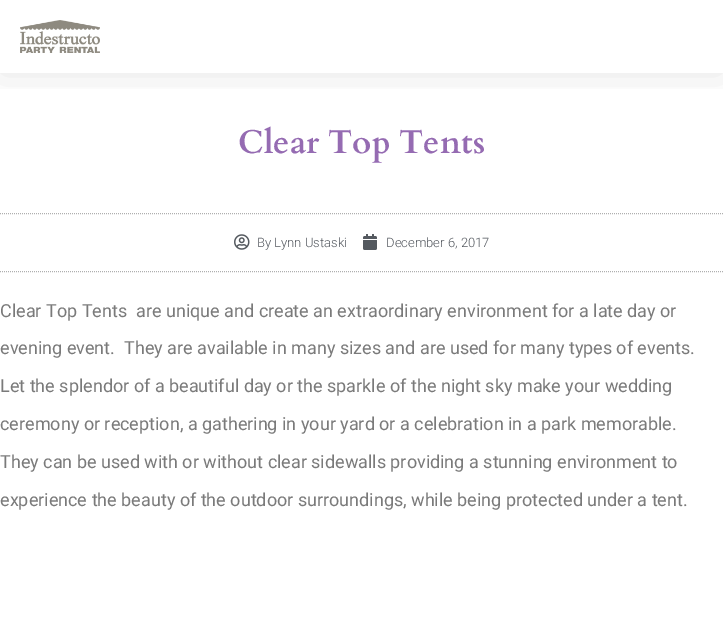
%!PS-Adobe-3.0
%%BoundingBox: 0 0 723 639
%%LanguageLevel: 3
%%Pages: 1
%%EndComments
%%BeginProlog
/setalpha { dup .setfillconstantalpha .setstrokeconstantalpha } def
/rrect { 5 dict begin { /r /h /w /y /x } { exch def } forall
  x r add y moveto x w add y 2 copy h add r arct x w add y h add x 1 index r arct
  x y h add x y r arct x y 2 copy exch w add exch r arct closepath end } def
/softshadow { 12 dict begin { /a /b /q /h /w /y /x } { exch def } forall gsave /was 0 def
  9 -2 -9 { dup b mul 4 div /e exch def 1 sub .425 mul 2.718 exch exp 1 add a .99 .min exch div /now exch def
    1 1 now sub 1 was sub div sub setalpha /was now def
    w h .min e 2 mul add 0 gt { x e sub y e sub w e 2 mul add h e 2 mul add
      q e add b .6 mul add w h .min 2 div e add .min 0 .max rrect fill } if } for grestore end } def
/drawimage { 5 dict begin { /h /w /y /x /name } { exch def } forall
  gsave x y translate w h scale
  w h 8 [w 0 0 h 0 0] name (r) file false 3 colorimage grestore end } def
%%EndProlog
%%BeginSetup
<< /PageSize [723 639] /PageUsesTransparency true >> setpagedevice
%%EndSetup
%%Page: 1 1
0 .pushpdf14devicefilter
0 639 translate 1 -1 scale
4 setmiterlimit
1 setgray
0 0 723 639 rectfill
gsave
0 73 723 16 rectclip
0 setgray
0 0 723 73 0 19 0.1 softshadow
grestore
(images/1.raw) 20 20 80 33 drawimage
0.686 setgray
[1 1] 0 setdash
newpath 0 213.5 moveto 723 213.5 lineto stroke
newpath 0 271.5 moveto 723 271.5 lineto stroke
(images/2.raw) 234 234 16 16 drawimage
(images/3.raw) 363 234 14 16 drawimage
/Cardo-Bold [33 0 0 -33 0 0] selectfont
0.584 0.42 0.698 setrgbcolor
238 153 moveto (Clear Top Tents) show
/Roboto-Light [13 0 0 -13 0 0] selectfont
0.329 0.349 0.373 setrgbcolor
257 247 moveto (By Lynn Ustaski) show
386 247 moveto (December 6, 2017) show
/Roboto-Regular [18 0 0 -18 0 0] selectfont
0.478 setgray
0 317 moveto (Clear Top Tents  are unique and create an extraordinary environment for a late day or) show
0 354 moveto (evening event.  They are available in many sizes and are used for many types of events.) show
0 392 moveto (Let the splendor of a beautiful day or the sparkle of the night sky make your wedding) show
0 430 moveto (ceremony or reception, a gathering in your yard or a celebration in a park memorable.) show
0 468 moveto (They can be used with or without clear sidewalls providing a stunning environment to) show
0 506 moveto (experience the beauty of the outdoor surroundings, while being protected under a tent.) show
.poppdf14devicefilter showpage
%%EOF
